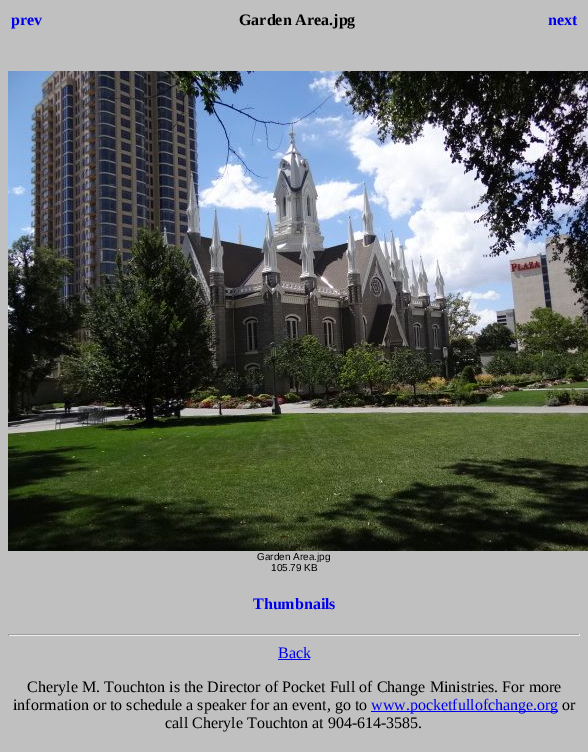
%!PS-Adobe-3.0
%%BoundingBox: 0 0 588 752
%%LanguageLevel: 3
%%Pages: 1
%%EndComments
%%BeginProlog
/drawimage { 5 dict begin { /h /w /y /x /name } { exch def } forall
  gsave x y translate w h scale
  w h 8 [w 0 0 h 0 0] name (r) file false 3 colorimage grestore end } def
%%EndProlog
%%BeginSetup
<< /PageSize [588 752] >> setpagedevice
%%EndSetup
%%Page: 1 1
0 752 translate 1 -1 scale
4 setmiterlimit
0.753 setgray
0 0 588 752 rectfill
(images/1.raw) 8 71 580 480 drawimage
0.624 setgray
8 634 572 1 rectfill
0.933 setgray
579 634 1 2 rectfill
8 635 572 1 rectfill
0.624 setgray
8 634 1 2 rectfill
0 0 0.933 setrgbcolor
278 659 32 1 rectfill
371 711 187 1 rectfill
/LiberationSerif-Bold [16 0 0 -16 0 0] selectfont
11 25 moveto (prev) show
0 setgray
239 25 moveto (Garden Area.jpg) show
0 0 0.933 setrgbcolor
548 25 moveto (next) show
/LiberationSans-Regular [10 0 0 -10 0 0] selectfont
0 setgray
257 560 moveto (Garden Area.jpg) show
271 571 moveto (105.79 KB) show
/LiberationSerif-Bold [16 0 0 -16 0 0] selectfont
0 0 0.933 setrgbcolor
253 609 moveto (Thumbnails) show
/LiberationSerif-Regular [16 0 0 -16 0 0] selectfont
278 658 moveto (Back) show
0 setgray
27 692 moveto (Cheryle M. Touchton is the Director of Pocket Full of Change Ministries. For more) show
13 710 moveto (information or to schedule a speaker for an event, go to) show
0 0 0.933 setrgbcolor
371 710 moveto (www.pocketfullofchange.org) show
0 setgray
562 710 moveto (or) show
165 728 moveto (call Cheryle Touchton at 904-614-3585.) show
showpage
%%EOF
